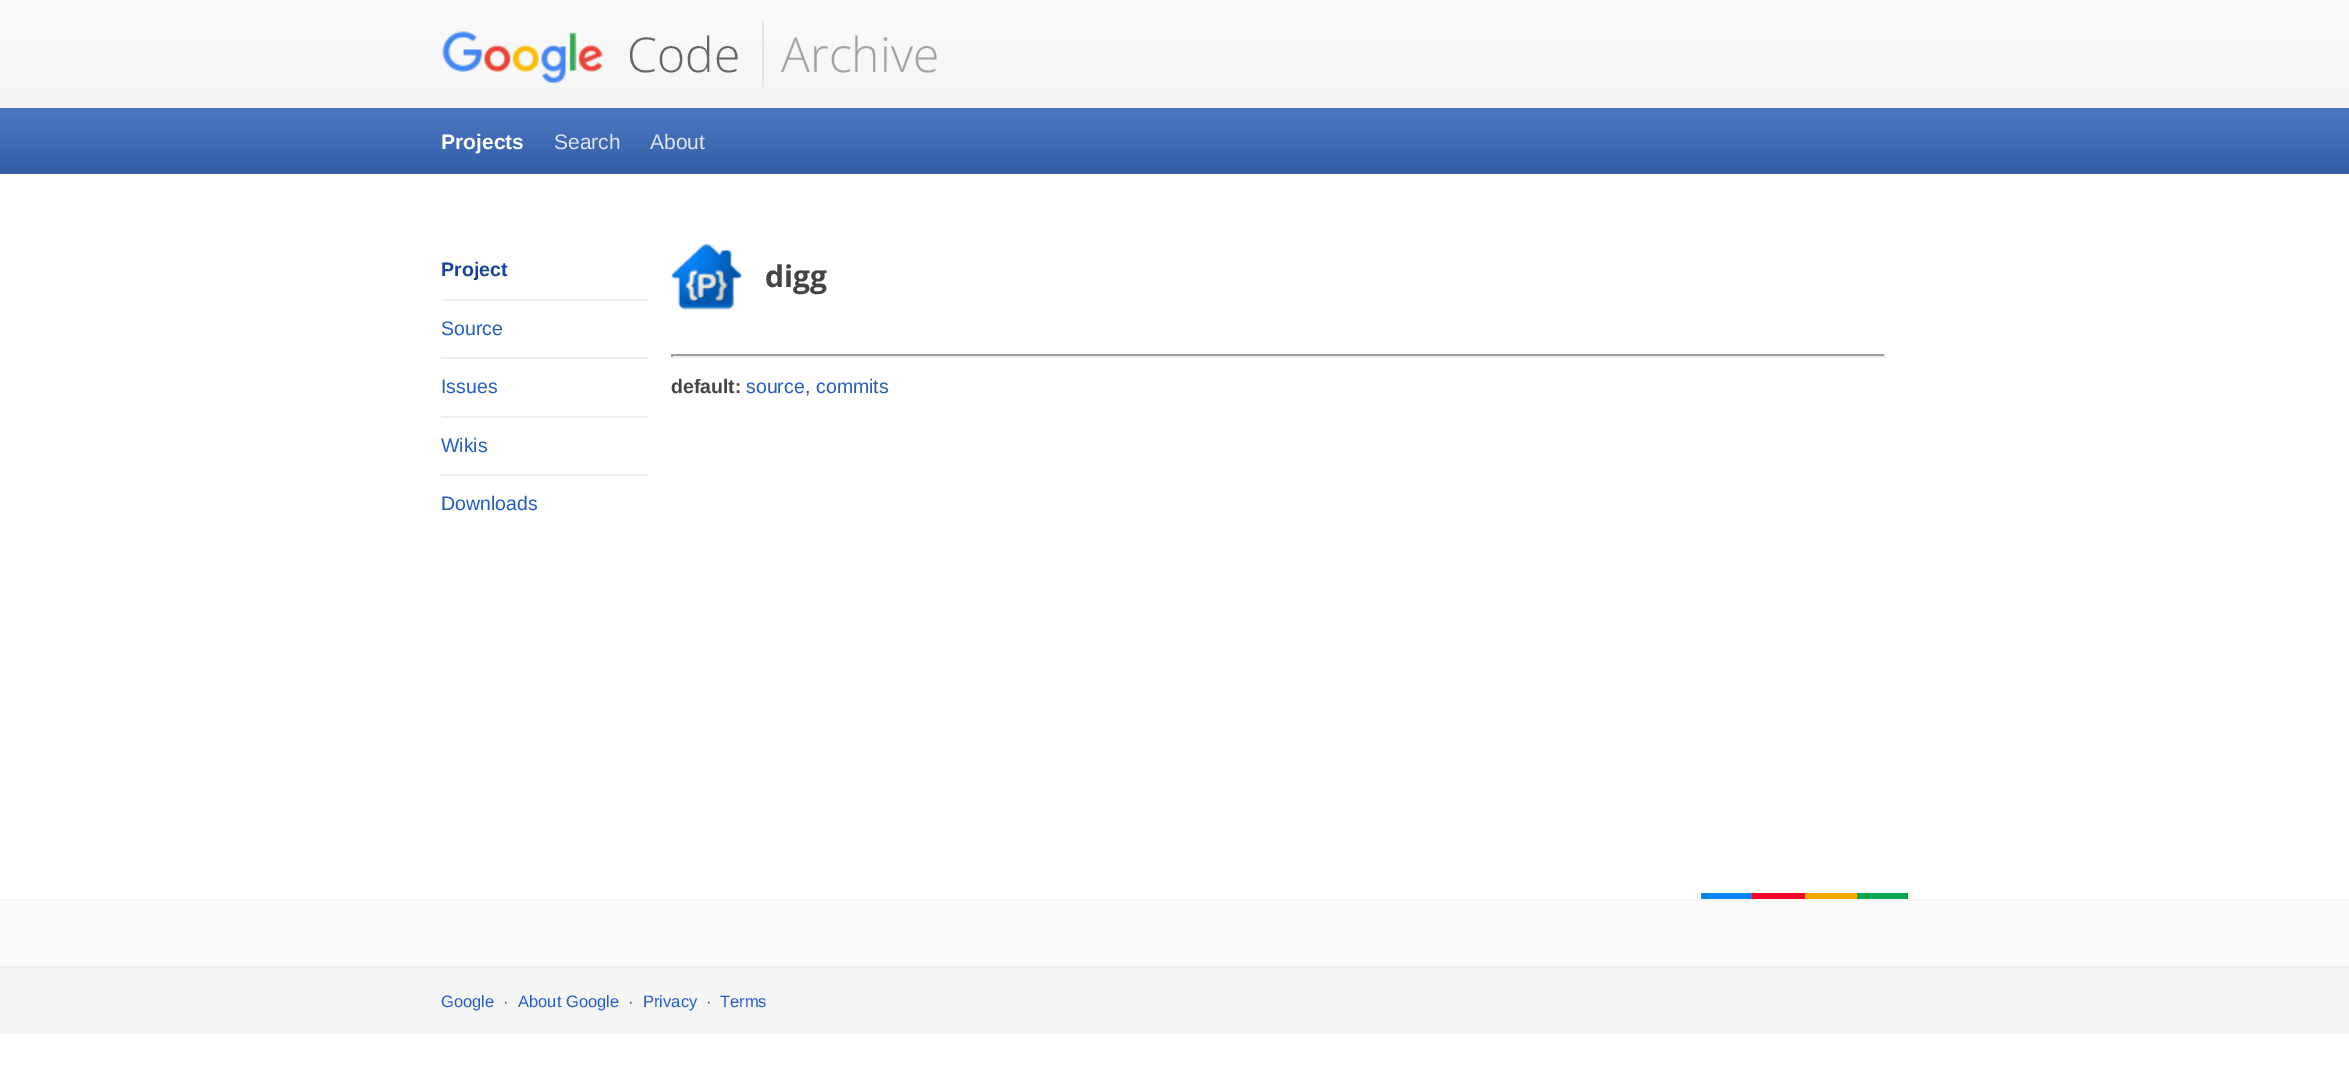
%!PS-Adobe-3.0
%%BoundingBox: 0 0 2349 1068
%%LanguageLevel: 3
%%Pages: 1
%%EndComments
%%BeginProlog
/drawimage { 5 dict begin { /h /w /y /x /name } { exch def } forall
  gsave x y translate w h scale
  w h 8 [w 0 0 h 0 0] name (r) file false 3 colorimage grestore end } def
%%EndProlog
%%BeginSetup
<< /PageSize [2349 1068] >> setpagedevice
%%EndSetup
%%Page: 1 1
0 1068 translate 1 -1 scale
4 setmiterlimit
1 setgray
0 0 2349 1068 rectfill
gsave newpath 0 0 moveto 2349 0 lineto 2349 107 lineto 0 107 lineto closepath clip newpath
<< /ShadingType 2 /ColorSpace /DeviceRGB /Coords [0 0 0 107] /Extend [true true] /Function << /FunctionType 2 /Domain [0 1] /C0 [0.98 0.98 0.98] /C1 [0.961 0.961 0.961] /N 1 >> >> shfill grestore
0.933 setgray
0 107 2349 1 rectfill
(images/1.raw) 442 31 162 53 drawimage
0.898 setgray
762 21 2 66 rectfill
gsave newpath 0 108 moveto 2349 108 lineto 2349 174 lineto 0 174 lineto closepath clip newpath
<< /ShadingType 2 /ColorSpace /DeviceRGB /Coords [0 108 0 174] /Extend [true true] /Function << /FunctionType 2 /Domain [0 1] /C0 [0.306 0.471 0.761] /C1 [0.196 0.365 0.655] /N 1 >> >> shfill grestore
0.933 setgray
441 299 207 2 rectfill
441 357 207 2 rectfill
441 416 207 2 rectfill
441 474 207 2 rectfill
(images/2.raw) 671 244 71 66 drawimage
0.624 setgray
671 354 1215 2 rectfill
0.933 setgray
1884 354 2 3 rectfill
671 356 1215 2 rectfill
0.624 setgray
671 354 2 3 rectfill
1 0 0.169 setrgbcolor
1752 893 53 6 rectfill
0 0.537 0.98 setrgbcolor
1701 893 51 6 rectfill
0 0.655 0.325 setrgbcolor
1857 893 51 6 rectfill
1 0.663 0 setrgbcolor
1805 893 52 6 rectfill
0.961 setgray
0 968 2349 66 rectfill
0.976 setgray
0 901 2349 65 rectfill
0.961 setgray
0 899 2349 2 rectfill
0.933 setgray
0 966 2349 2 rectfill
/OpenSans-Light [48 0 0 -48 0 0] selectfont
0.388 0.4 0.416 setrgbcolor
627 72 moveto (Code) show
0.624 0.635 0.651 setrgbcolor
781 72 moveto (Archive) show
/LiberationSans-Bold [21 0 0 -21 0 0] selectfont
1 setgray
441 149 moveto (Projects) show
/LiberationSans-Regular [21 0 0 -21 0 0] selectfont
0.882 0.898 0.949 setrgbcolor
554 149 moveto (Search) show
650 149 moveto (About) show
/LiberationSans-Bold [19.5 0 0 -19.5 0 0] selectfont
0.086 0.267 0.584 setrgbcolor
441 276 moveto (Project) show
/LiberationSans-Regular [19.5 0 0 -19.5 0 0] selectfont
0.141 0.365 0.757 setrgbcolor
441 335 moveto (Source) show
441 393 moveto (Issues) show
441 452 moveto (Wikis) show
441 510 moveto (Downloads) show
/OpenSans-Bold [30 0 0 -30 0 0] selectfont
0.267 setgray
765 287 moveto (digg) show
/LiberationSans-Bold [19.5 0 0 -19.5 0 0] selectfont
671 393 moveto (default:) show
/LiberationSans-Regular [19.5 0 0 -19.5 0 0] selectfont
0.141 0.365 0.757 setrgbcolor
746 393 moveto (source) show
0.267 setgray
805 393 moveto (,) show
0.141 0.365 0.757 setrgbcolor
816 393 moveto (commits) show
/LiberationSans-Regular [16.5 0 0 -16.5 0 0] selectfont
441 1007 moveto (Google) show
0.267 setgray
503 1007 moveto (·) show
0.141 0.365 0.757 setrgbcolor
518 1007 moveto (About Google) show
0.267 setgray
628 1007 moveto (·) show
0.141 0.365 0.757 setrgbcolor
643 1007 moveto (Privacy) show
0.267 setgray
706 1007 moveto (·) show
0.141 0.365 0.757 setrgbcolor
720 1007 moveto (Terms) show
showpage
%%EOF
